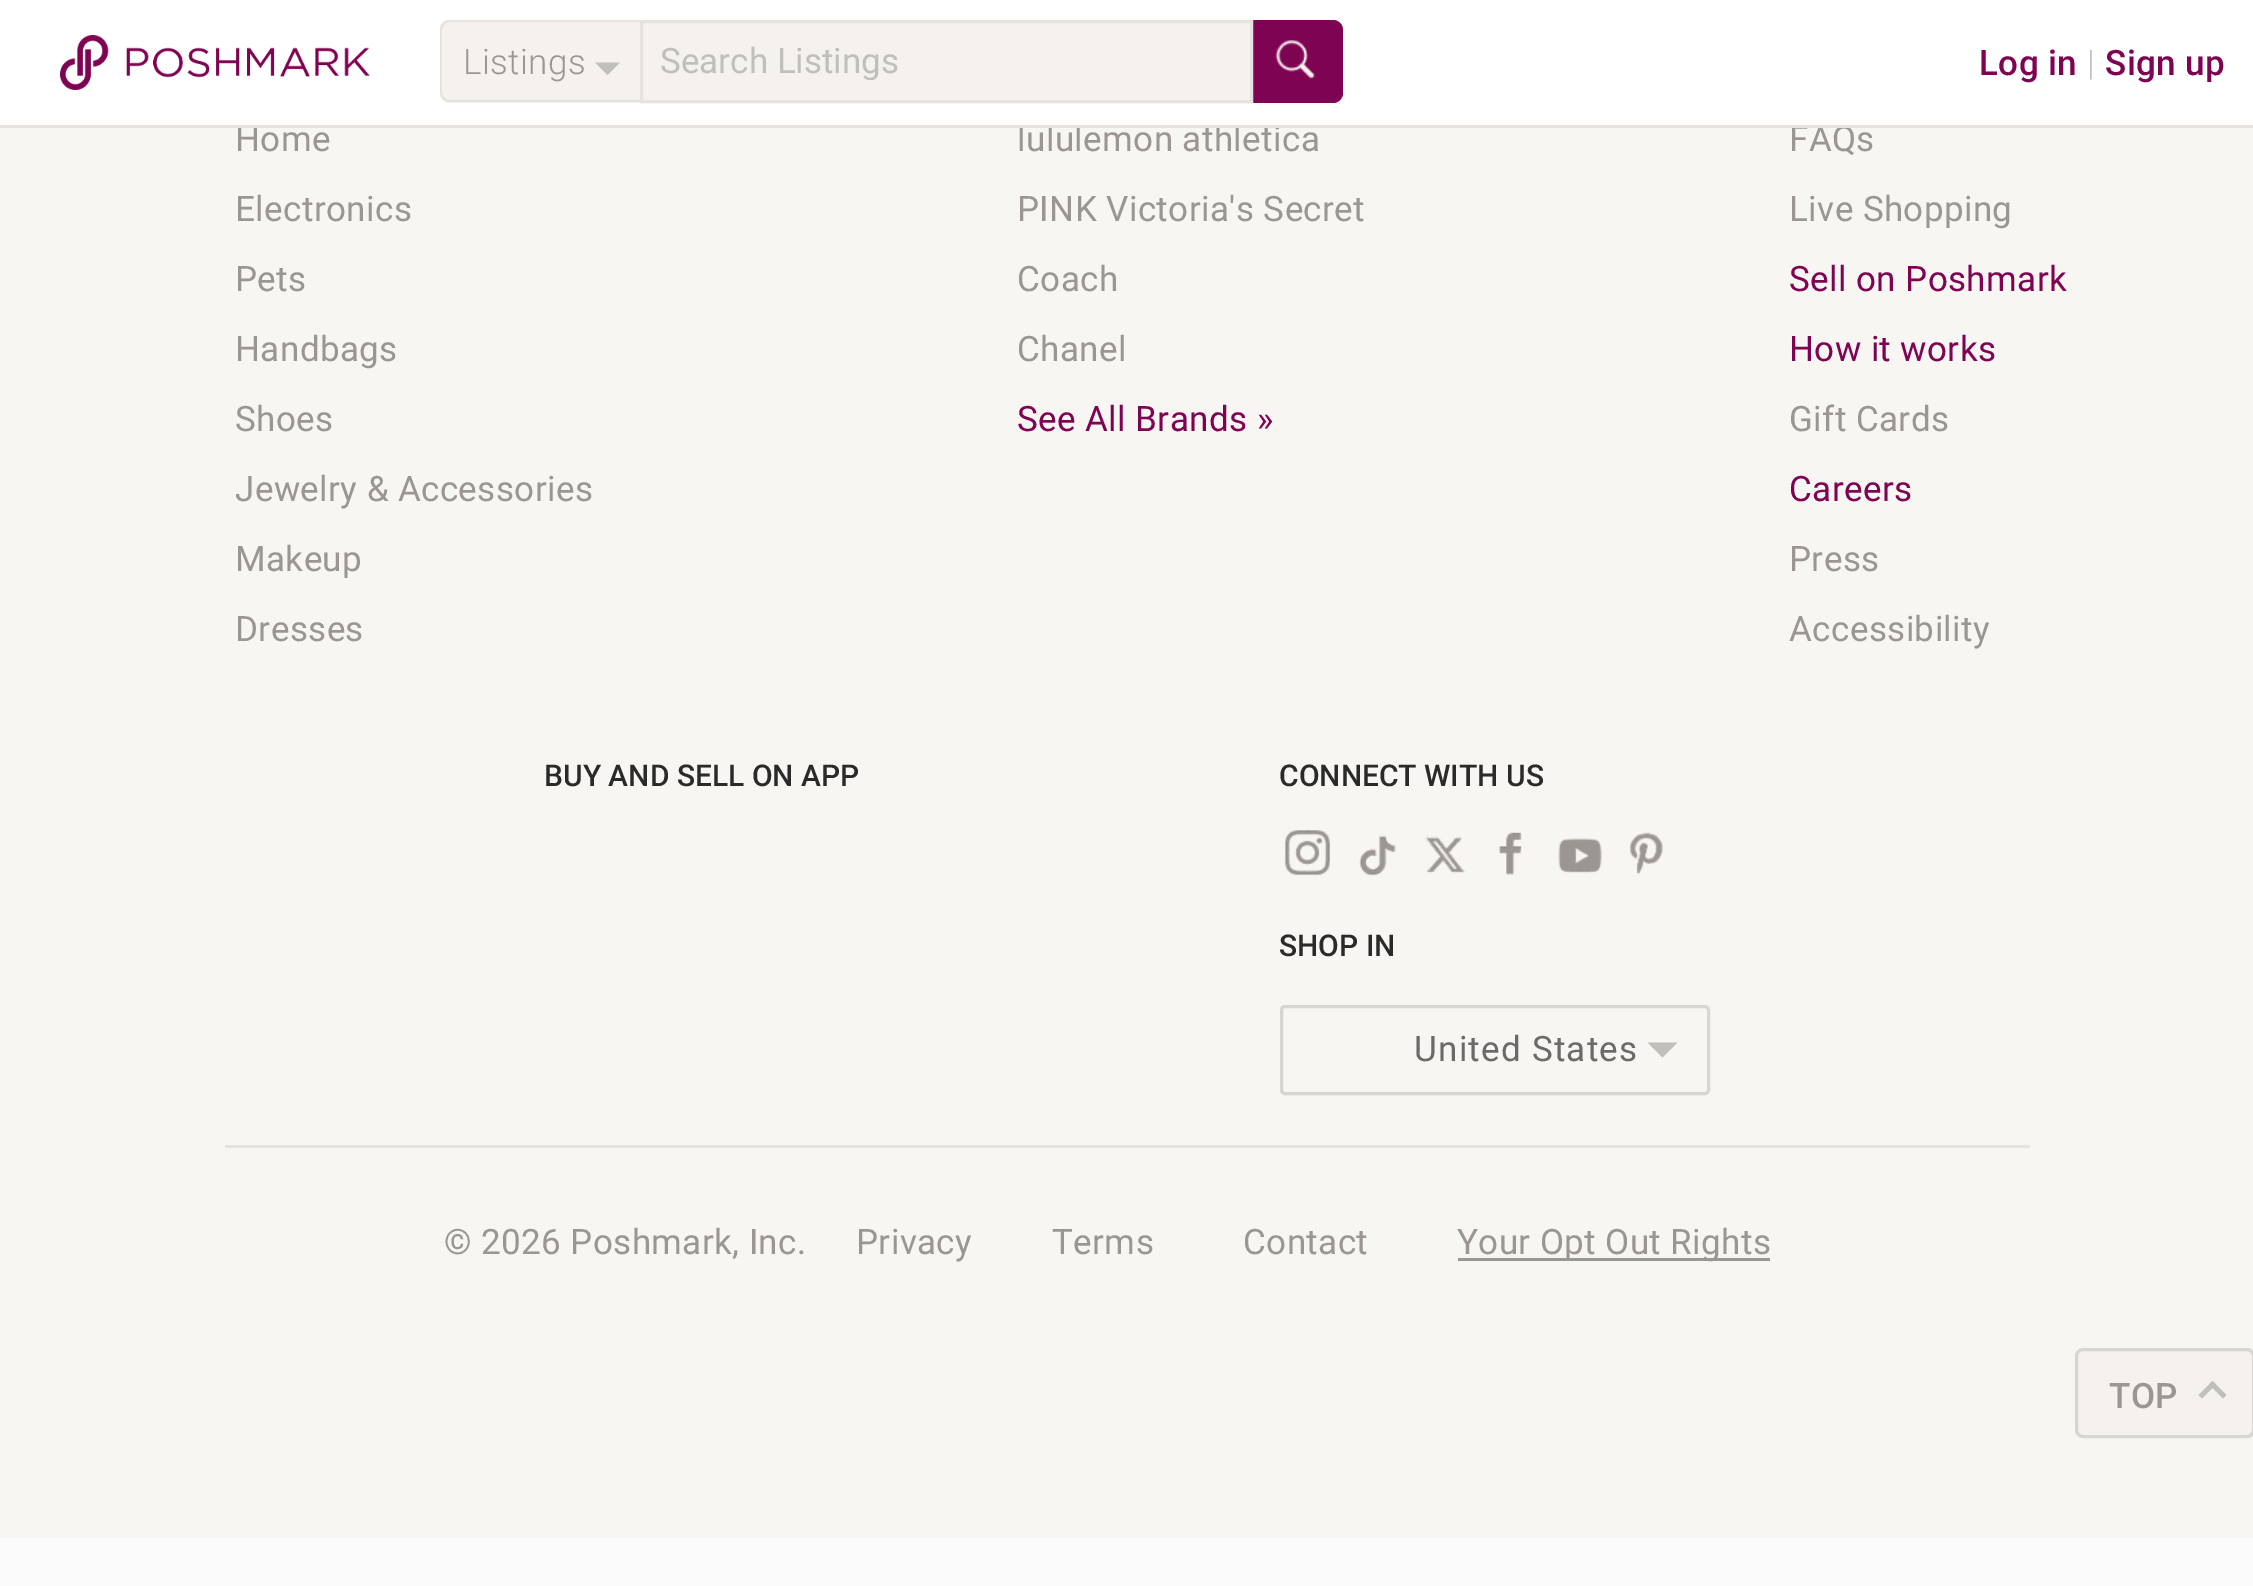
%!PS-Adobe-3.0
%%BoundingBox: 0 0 2253 1586
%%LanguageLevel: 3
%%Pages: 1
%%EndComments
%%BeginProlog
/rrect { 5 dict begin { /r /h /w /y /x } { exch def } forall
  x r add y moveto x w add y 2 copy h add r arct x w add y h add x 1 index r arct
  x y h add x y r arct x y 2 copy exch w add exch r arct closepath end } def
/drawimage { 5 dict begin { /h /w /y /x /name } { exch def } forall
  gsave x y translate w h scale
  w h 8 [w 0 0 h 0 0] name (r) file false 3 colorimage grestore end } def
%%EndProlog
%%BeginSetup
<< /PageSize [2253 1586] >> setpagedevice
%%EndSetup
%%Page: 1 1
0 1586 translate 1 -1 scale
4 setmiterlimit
0.988 0.984 0.984 setrgbcolor
0 0 2253 1586 rectfill
0.973 0.965 0.953 setrgbcolor
0 128 2253 1410 rectfill
(images/3.raw) 1283 830 47 46 drawimage
(images/4.raw) 1359 835 37 41 drawimage
(images/5.raw) 1425 836 40 38 drawimage
(images/6.raw) 1499 832 23 43 drawimage
(images/7.raw) 1558 838 44 36 drawimage
(images/8.raw) 1630 832 33 43 drawimage
0.851 0.835 0.824 setrgbcolor
3 setlinewidth
1281.5 1006.5 427 87 3.5 rrect stroke
0.757 0.749 0.737 setrgbcolor
newpath 1647.5 1042.5 moveto 1677.5 1042.5 lineto 1662.5 1057.5 lineto closepath fill
0.902 0.886 0.875 setrgbcolor
225 1145 1805 3 rectfill
0.608 0.588 0.569 setrgbcolor
1458 1258 312 3 rectfill
0.961 0.949 0.933 setrgbcolor
2076.5 1349.5 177 87 6.5 rrect gsave fill grestore
0.851 0.835 0.824 setrgbcolor
stroke
0.757 0.749 0.737 setrgbcolor
newpath 2202 1398.5 moveto 2198.5 1395 lineto 2212.5 1381 lineto 2216 1384.5 lineto closepath fill
newpath 2223 1398.5 moveto 2209 1384.5 lineto 2212.5 1381 lineto 2226.5 1395 lineto closepath fill
/Roboto-Regular [35 0 0 -35 0 0] selectfont
0.608 0.588 0.569 setrgbcolor
235 151 moveto 0.4 0 (Home) ashow
235 221 moveto 0.4 0 (Electronics) ashow
235 291 moveto 0.4 0 (Pets) ashow
235 361 moveto 0.4 0 (Handbags) ashow
235 431 moveto 0.4 0 (Shoes) ashow
235 501 moveto 0.4 0 (Jewelry & Accessories) ashow
235 571 moveto 0.4 0 (Makeup) ashow
235 641 moveto 0.4 0 (Dresses) ashow
1017 151 moveto 0.4 0 (lululemon athletica) ashow
1 setgray
0 0 2253 125 rectfill
0.498 0.012 0.325 setrgbcolor
newpath 1250 20 moveto 1333 20 lineto 1338.5 20 1343 24.5 1343 30 curveto 1343 93 lineto 1343 98.5 1338.5 103 1333 103 curveto 1250 103 lineto closepath fill
0.961 0.949 0.933 setrgbcolor
newpath 641.5 21.5 moveto 1251.5 21.5 lineto 1251.5 101.5 lineto 641.5 101.5 lineto closepath gsave fill grestore
0.902 0.886 0.875 setrgbcolor
stroke
gsave
660 40 538 40 rectclip
0.757 0.749 0.737 setrgbcolor
660 73 moveto (Search Listings) show
grestore
0.961 0.949 0.933 setrgbcolor
newpath 450 20 moveto 640 20 lineto 640 103 lineto 450 103 lineto 444.5 103 440 98.5 440 93 curveto 440 30 lineto 440 24.5 444.5 20 450 20 curveto closepath fill
0.902 0.886 0.875 setrgbcolor
newpath 450 20 moveto 640 20 lineto 640 102 lineto 450 102 lineto 444 102 440 98 440 92 curveto 440 30 lineto 440 24 444 20 450 20 curveto closepath 450 22 moveto 640 22 lineto 640 100 lineto 450 100 lineto 446 100 442 97 442 92 curveto 442 30 lineto 442 26 446 22 450 22 curveto closepath eofill
0.757 0.749 0.737 setrgbcolor
newpath 595 62.5 moveto 620 62.5 lineto 607.5 75 lineto closepath fill
/Roboto-Light [35 0 0 -35 0 0] selectfont
0.608 0.588 0.569 setrgbcolor
463 74 moveto 0.4 0 (Listings) ashow
/Roboto-Medium [35 0 0 -35 0 0] selectfont
0.498 0.012 0.325 setrgbcolor
2105 75 moveto 0.4 0 (Sign up) ashow
/Roboto-Light [35 0 0 -35 0 0] selectfont
0.757 0.749 0.737 setrgbcolor
2087 75 moveto 0.4 0 (|) ashow
/Roboto-Medium [35 0 0 -35 0 0] selectfont
0.498 0.012 0.325 setrgbcolor
1979 75 moveto 0.4 0 (Log in) ashow
(images/2.raw) 1275 40 40 39 drawimage
(images/1.raw) 60 35 310 55 drawimage
/Roboto-Regular [35 0 0 -35 0 0] selectfont
0.608 0.588 0.569 setrgbcolor
1017 221 moveto 0.4 0 (PINK Victoria's Secret) ashow
1017 291 moveto 0.4 0 (Coach) ashow
1017 361 moveto 0.4 0 (Chanel) ashow
0.498 0.012 0.325 setrgbcolor
1017 431 moveto 0.4 0 (See All Brands ») ashow
0.608 0.588 0.569 setrgbcolor
1789 151 moveto 0.4 0 (FAQs) ashow
0.902 0.886 0.875 setrgbcolor
0 125 2253 3 rectfill
0.608 0.588 0.569 setrgbcolor
1789 221 moveto 0.4 0 (Live Shopping) ashow
0.498 0.012 0.325 setrgbcolor
1789 291 moveto 0.4 0 (Sell on Poshmark) ashow
1789 361 moveto 0.4 0 (How it works) ashow
0.608 0.588 0.569 setrgbcolor
1789 431 moveto 0.4 0 (Gift Cards) ashow
0.498 0.012 0.325 setrgbcolor
1789 501 moveto 0.4 0 (Careers) ashow
0.608 0.588 0.569 setrgbcolor
1789 571 moveto 0.4 0 (Press) ashow
1789 641 moveto 0.4 0 (Accessibility) ashow
/Roboto-Medium [30 0 0 -30 0 0] selectfont
0.165 setgray
544 786 moveto (BUY AND SELL ON APP) show
1279 786 moveto (CONNECT WITH US) show
1279 956 moveto (SHOP IN) show
/Roboto-Regular [35 0 0 -35 0 0] selectfont
0.416 setgray
1414 1061 moveto 1.25 0 (United States) ashow
0.608 0.588 0.569 setrgbcolor
444 1254 moveto 0.4 0 (© 2026 Poshmark, Inc.) ashow
856 1254 moveto 0.4 0 (Privacy) ashow
1052 1254 moveto 0.4 0 (Terms) ashow
1243 1254 moveto 0.4 0 (Contact) ashow
1457 1254 moveto 0.4 0 (Your Opt Out Rights) ashow
/Roboto-Medium [35 0 0 -35 0 0] selectfont
2109 1408 moveto 0.4 0 (TOP) ashow
showpage
%%EOF
